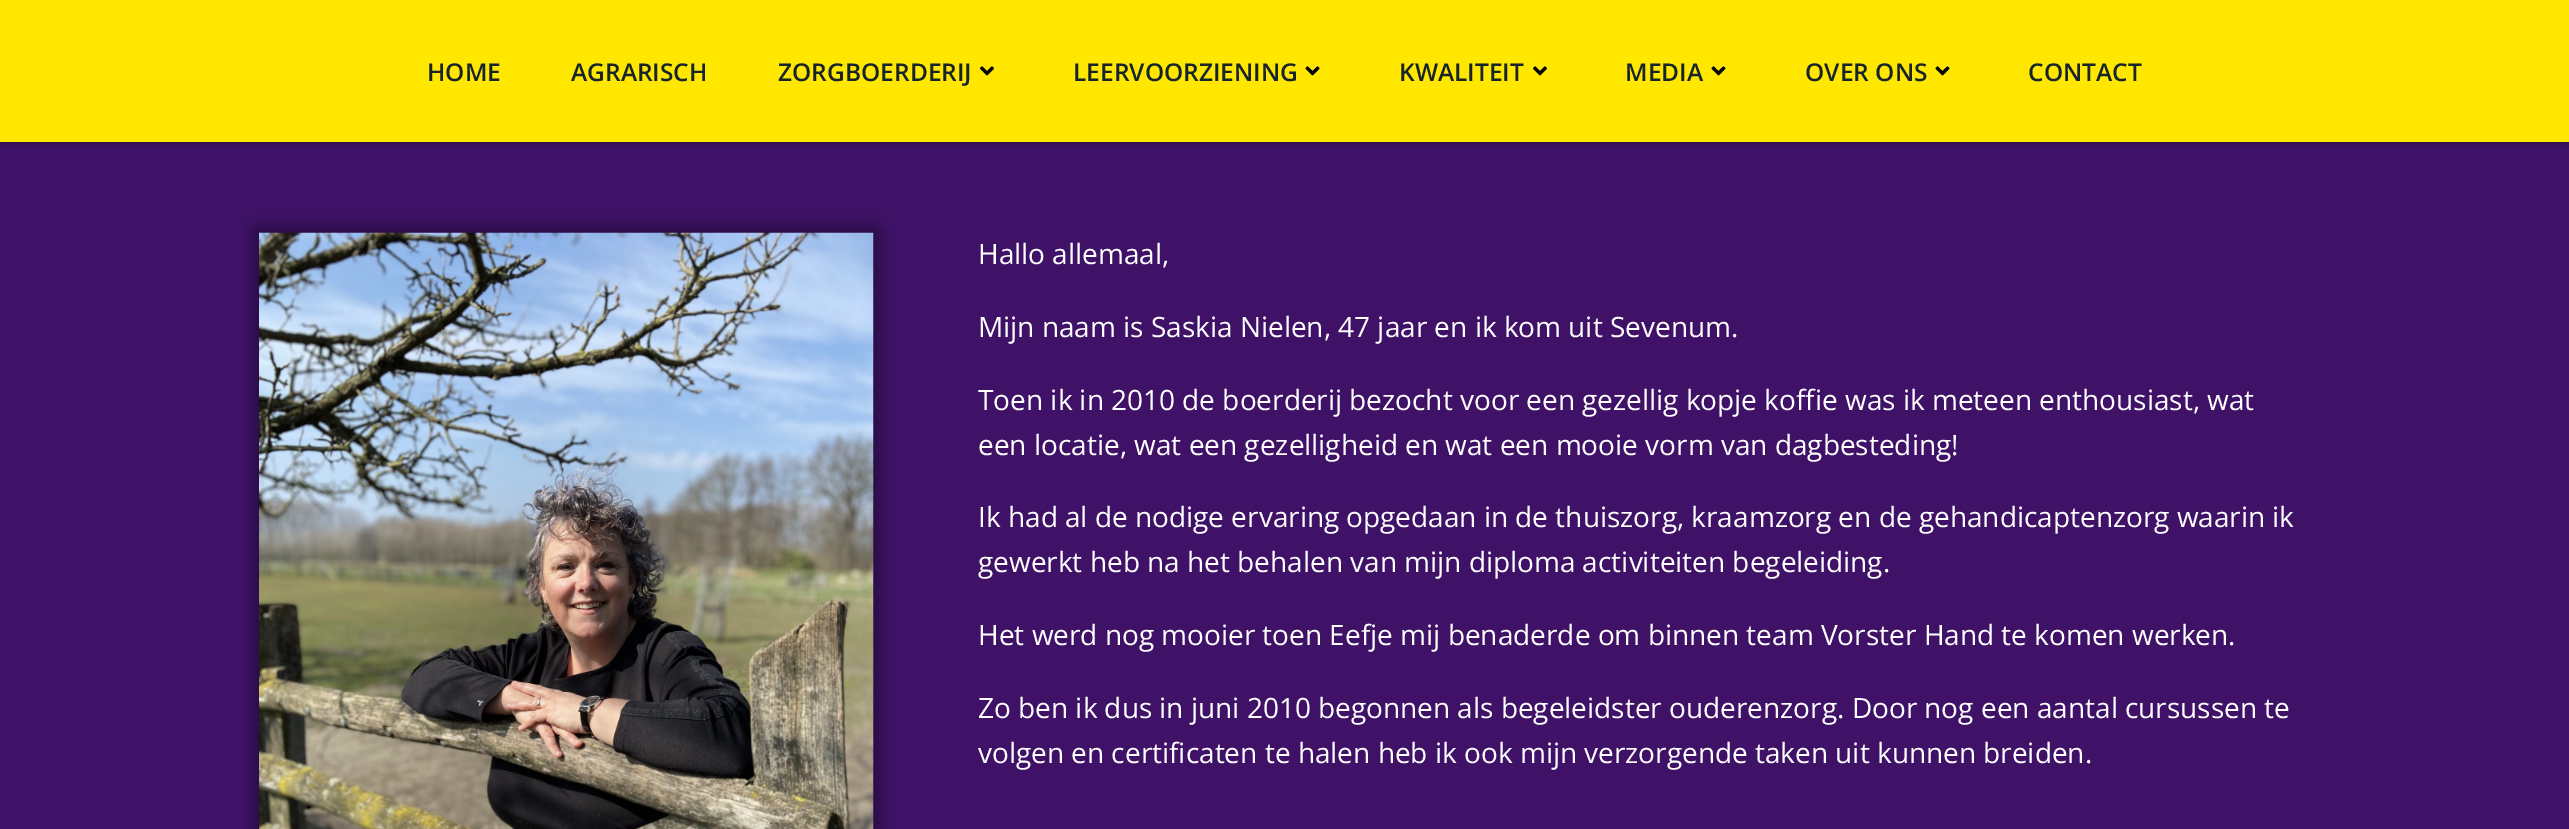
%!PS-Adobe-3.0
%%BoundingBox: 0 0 2569 829
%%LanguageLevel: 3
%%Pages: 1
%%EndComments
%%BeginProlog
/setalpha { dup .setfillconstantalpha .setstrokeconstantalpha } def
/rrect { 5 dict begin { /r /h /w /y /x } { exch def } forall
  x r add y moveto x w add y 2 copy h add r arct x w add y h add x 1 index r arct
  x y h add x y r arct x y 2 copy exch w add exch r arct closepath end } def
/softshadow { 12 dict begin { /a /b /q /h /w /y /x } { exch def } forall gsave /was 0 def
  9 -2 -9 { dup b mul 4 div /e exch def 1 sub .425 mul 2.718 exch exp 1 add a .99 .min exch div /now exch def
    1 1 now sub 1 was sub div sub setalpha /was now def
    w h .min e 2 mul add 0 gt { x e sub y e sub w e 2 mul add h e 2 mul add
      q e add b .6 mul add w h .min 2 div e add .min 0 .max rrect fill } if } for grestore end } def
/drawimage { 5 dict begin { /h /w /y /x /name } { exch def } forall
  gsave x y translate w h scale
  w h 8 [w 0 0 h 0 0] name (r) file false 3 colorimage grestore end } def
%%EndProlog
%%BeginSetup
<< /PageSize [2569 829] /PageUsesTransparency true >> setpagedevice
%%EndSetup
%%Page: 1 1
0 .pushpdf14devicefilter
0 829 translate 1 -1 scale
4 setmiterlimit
0.247 0.071 0.408 setrgbcolor
0 0 2569 829 rectfill
0 setgray
0 0 2569 142 0 3.5 0.5 softshadow
1 0.906 0 setrgbcolor
0 0 2569 142 rectfill
(images/1.raw) 980 66 14 10 drawimage
(images/2.raw) 1305 66 15 10 drawimage
(images/1.raw) 1533 66 14 10 drawimage
(images/2.raw) 1711 66 15 10 drawimage
(images/2.raw) 1935 66 15 10 drawimage
0 setgray
256 229 621 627 0 9 0.5 softshadow
(images/3.raw) 259 232 615 597 drawimage
/OpenSans-SemiBold [24.5 0 0 -24.5 0 0] selectfont
0.09 0.145 0.165 setrgbcolor
427 81 moveto (HOME) show
571 81 moveto (AGRARISCH) show
778 81 moveto (ZORGBOERDERIJ) show
1073 81 moveto (LEERVOORZIENING) show
1399 81 moveto (KWALITEIT) show
1625 81 moveto (MEDIA) show
1805 81 moveto (OVER ONS) show
2028 81 moveto (CONTACT) show
/OpenSans-Regular [28 0 0 -28 0 0] selectfont
1 setgray
978 264 moveto (Hallo allemaal,) show
978 337 moveto (Mijn naam is Saskia Nielen, 47 jaar en ik kom uit Sevenum.) show
978 410 moveto (Toen ik in 2010 de boerderij bezocht voor een gezellig kopje koffie was ik meteen enthousiast, wat) show
978 455 moveto (een locatie, wat een gezelligheid en wat een mooie vorm van dagbesteding!) show
978 527 moveto (Ik had al de nodige ervaring opgedaan in de thuiszorg, kraamzorg en de gehandicaptenzorg waarin ik) show
978 572 moveto (gewerkt heb na het behalen van mijn diploma activiteiten begeleiding.) show
978 645 moveto (Het werd nog mooier toen Eefje mij benaderde om binnen team Vorster Hand te komen werken.) show
978 718 moveto (Zo ben ik dus in juni 2010 begonnen als begeleidster ouderenzorg. Door nog een aantal cursussen te) show
978 763 moveto (volgen en certificaten te halen heb ik ook mijn verzorgende taken uit kunnen breiden.) show
.poppdf14devicefilter showpage
%%EOF
